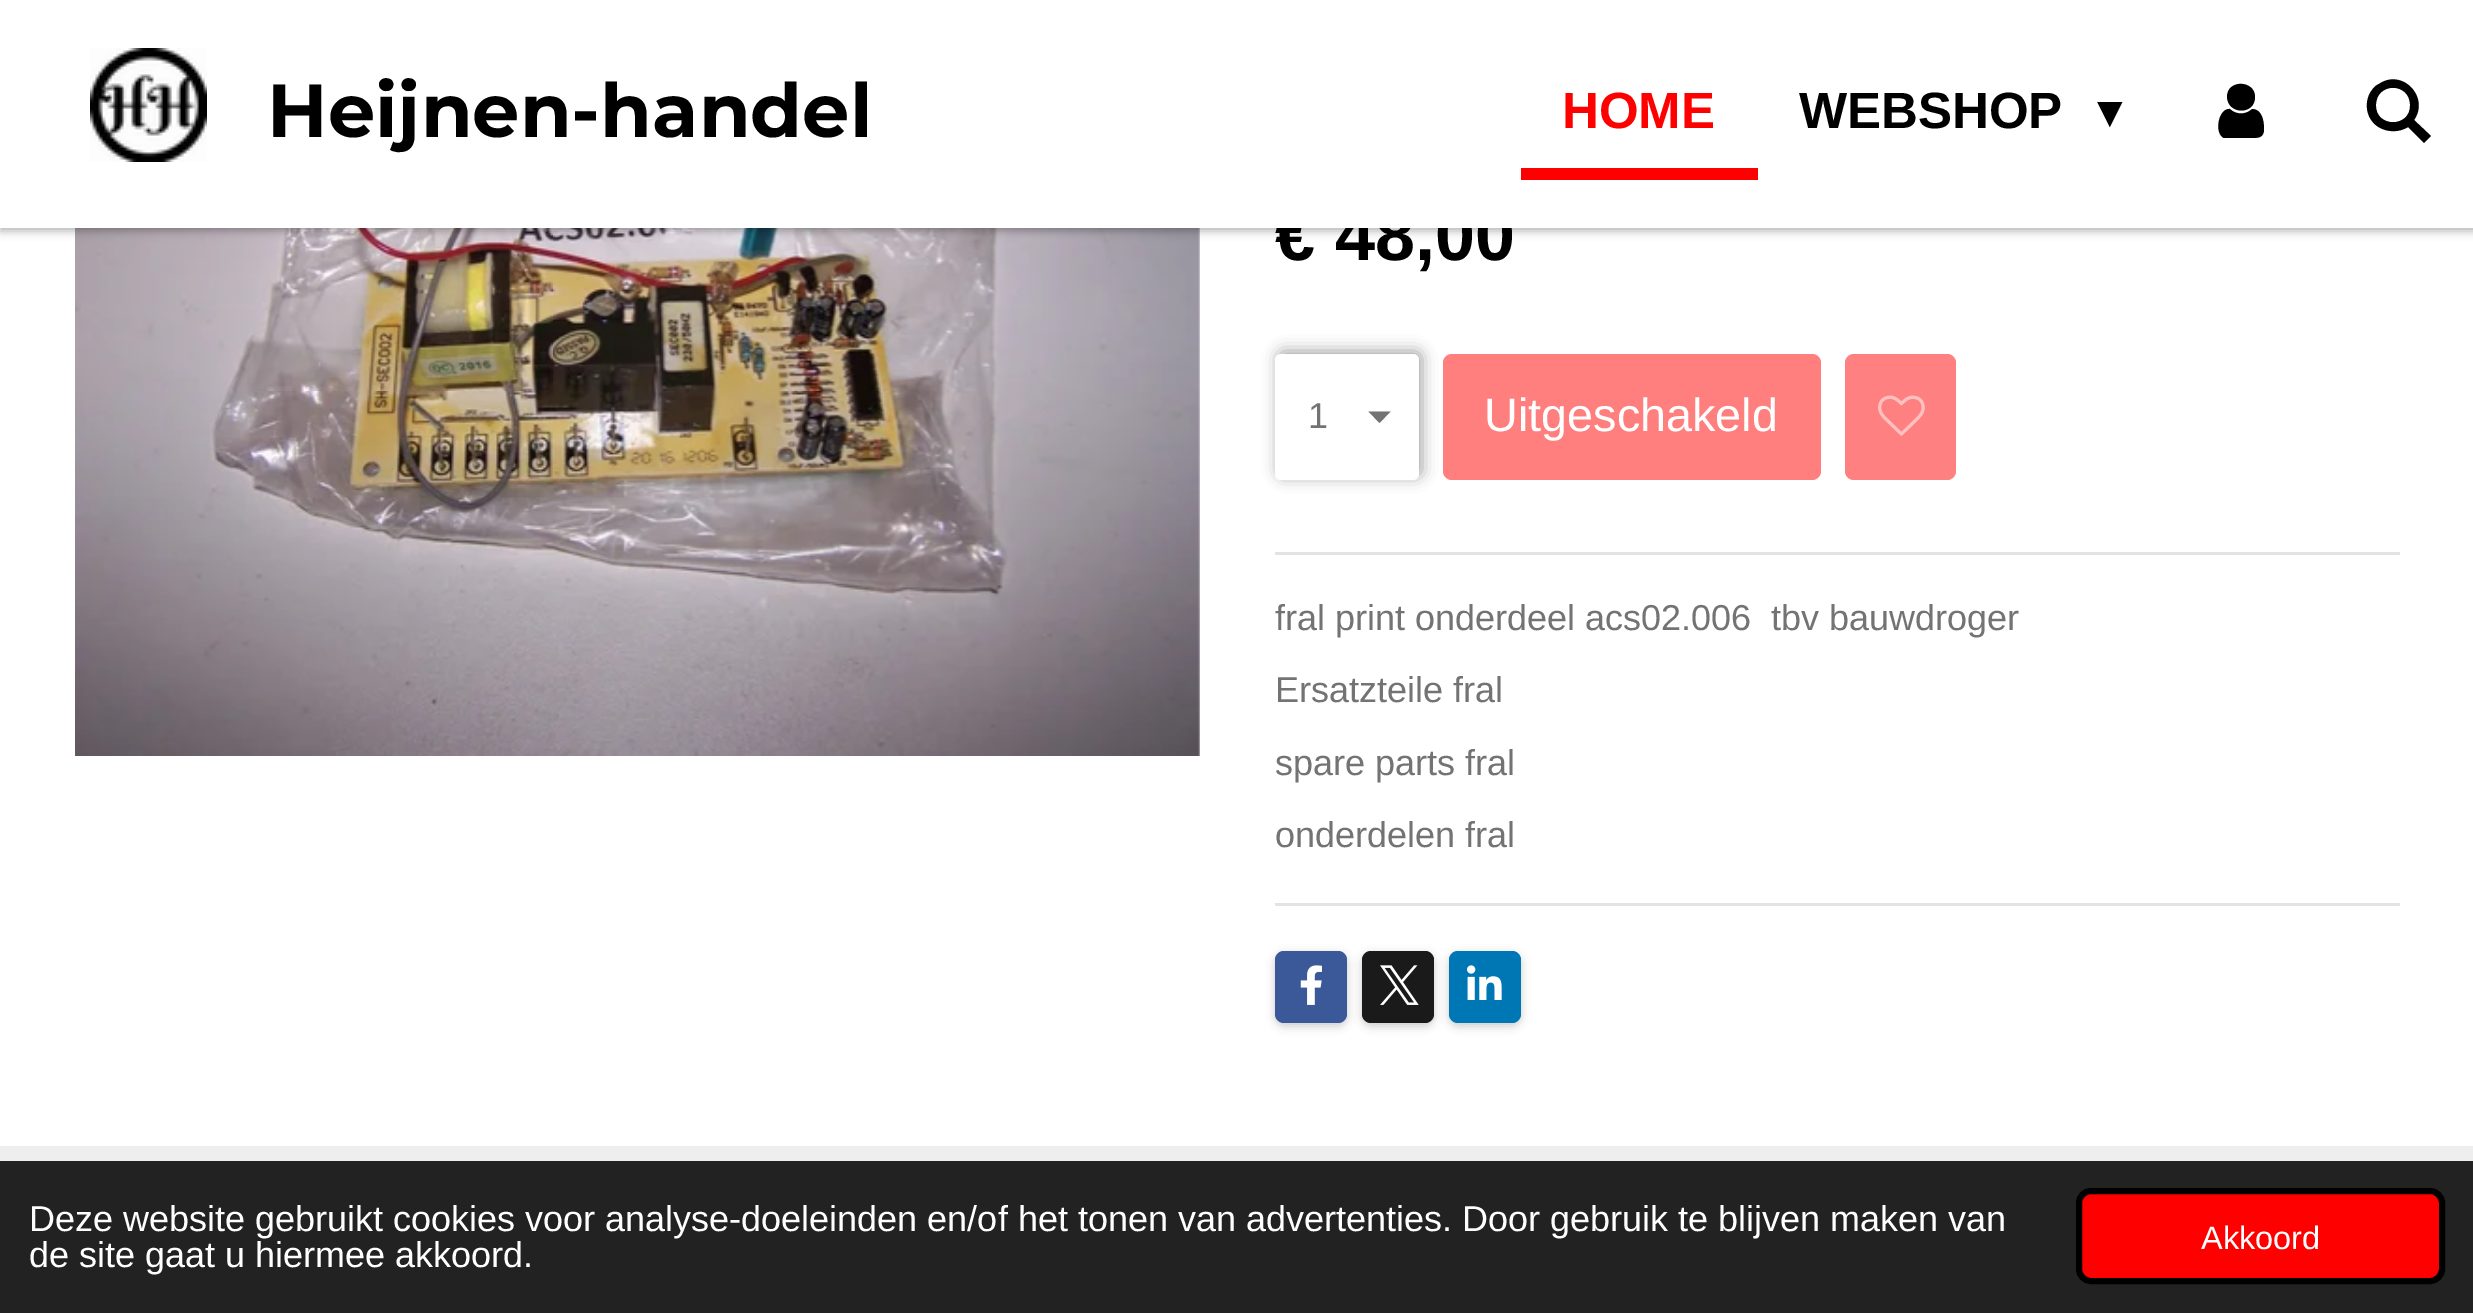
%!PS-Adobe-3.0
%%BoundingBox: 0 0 2473 1313
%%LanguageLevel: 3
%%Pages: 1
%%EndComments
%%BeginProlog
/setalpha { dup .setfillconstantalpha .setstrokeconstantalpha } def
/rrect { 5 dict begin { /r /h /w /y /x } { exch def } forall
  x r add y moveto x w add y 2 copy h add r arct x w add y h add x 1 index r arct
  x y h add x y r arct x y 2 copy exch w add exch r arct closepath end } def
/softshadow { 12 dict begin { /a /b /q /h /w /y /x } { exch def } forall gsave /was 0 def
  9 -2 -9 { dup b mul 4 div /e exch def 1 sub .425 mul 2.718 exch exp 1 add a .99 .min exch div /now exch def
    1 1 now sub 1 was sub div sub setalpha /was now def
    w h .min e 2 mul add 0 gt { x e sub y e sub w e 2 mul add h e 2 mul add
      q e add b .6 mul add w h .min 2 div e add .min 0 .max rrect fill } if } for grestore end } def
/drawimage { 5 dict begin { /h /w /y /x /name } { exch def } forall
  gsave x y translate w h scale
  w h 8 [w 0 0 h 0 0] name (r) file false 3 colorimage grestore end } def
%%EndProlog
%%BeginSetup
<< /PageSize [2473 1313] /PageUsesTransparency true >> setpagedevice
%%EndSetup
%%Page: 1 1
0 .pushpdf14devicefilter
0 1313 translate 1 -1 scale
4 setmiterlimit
1 setgray
0 0 2473 1313 rectfill
(images/2.raw) 75 228 1125 528 drawimage
0 setgray
0 3 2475 228 0 4.5 0.3 softshadow
1278 351 144 126 6 7.5 0.35 softshadow
1 setgray
1275 354 144 126 6 rrect fill
0.451 setgray
newpath 1379.5 423 moveto 1368.5 411.5 lineto 1390.5 411.5 lineto closepath fill
1 0.498 0.498 setrgbcolor
1443 354 378 126 9 rrect fill
1 0.502 0.502 setrgbcolor
1845 354 111 126 9 rrect fill
(images/3.raw) 1878 395 47 41 drawimage
0.89 setgray
1275 552 1125 3 rectfill
1275 903 1125 3 rectfill
0 setgray
1275 954 72 72 9 4.5 0.2 softshadow
0.231 0.349 0.596 setrgbcolor
1275 951 72 72 9 rrect fill
(images/4.raw) 1300 965 22 40 drawimage
0 setgray
1362 954 72 72 9 4.5 0.2 softshadow
0.102 setgray
1362 951 72 72 9 rrect fill
(images/5.raw) 1380 965 39 40 drawimage
0 setgray
1449 954 72 72 9 4.5 0.2 softshadow
0 0.467 0.71 setrgbcolor
1449 951 72 72 9 rrect fill
(images/6.raw) 1467 965 35 35 drawimage
0.933 setgray
0 1146 2473 15 rectfill
0.133 setgray
0 1161 2473 152 rectfill
1 0 0 setrgbcolor
2079 1191 363 90 12 rrect gsave fill grestore
0 setgray
6 setlinewidth
stroke
/LiberationSans-Bold [72 0 0 -72 0 0] selectfont
1275 260 moveto (€ 48,00) show
1 setgray
0 0 2473 228 rectfill
0 setgray
newpath 2414 120 moveto 2431 136 lineto 2424 143 lineto 2408 127 lineto 2395 135 2377 131 2370 118 curveto 2366 111 2366 102 2369 95 curveto 2371 91 2374 86 2379 84 curveto 2402 68 2430 97 2414 120 curveto closepath 2410 105 moveto 2410 82 2376 82 2376 105 curveto 2375 128 2411 128 2410 105 curveto closepath fill
newpath 2264 129 moveto 2264 138 2258 138 2251 138 curveto 2224 138 lineto 2214 134 2218 108 2230 109 curveto 2236 115 2246 115 2252 109 curveto 2262 109 2264 121 2264 129 curveto closepath 2255 97 moveto 2255 115 2228 115 2227 97 curveto 2227 79 2255 80 2255 97 curveto closepath fill
/DejaVuSans-Regular [51 0 0 -51 0 0] selectfont
2097 128 moveto (▾) show
/LiberationSans-Bold [51 0 0 -51 0 0] selectfont
1799 128 moveto (WEBSHOP) show
1 0 0 setrgbcolor
1562 128 moveto (HOME) show
1521 168 237 12 rectfill
/Montserrat-Bold [75 0 0 -75 0 0] selectfont
0 setgray
267 137 moveto (Heijnen-handel) show
(images/1.raw) 90 48 117 114 drawimage
/LiberationSans-Regular [36 0 0 -36 0 0] selectfont
0.451 setgray
1308 428 moveto (1) show
/LiberationSans-Regular [46.75 0 0 -46.75 0 0] selectfont
1 setgray
1484 431 moveto (Uitgeschakeld) show
/LiberationSans-Regular [36 0 0 -36 0 0] selectfont
0.451 setgray
1275 630 moveto (fral print onderdeel acs02.006  tbv bauwdroger) show
1275 702 moveto (Ersatzteile fral) show
1275 775 moveto (spare parts fral) show
1275 847 moveto (onderdelen fral) show
1 setgray
29 1231 moveto (Deze website gebruikt cookies voor analyse-doeleinden en/of het tonen van advertenties. Door gebruik te blijven maken van) show
29 1267 moveto (de site gaat u hiermee akkoord.) show
/LiberationSans-Regular [32.5 0 0 -32.5 0 0] selectfont
2201 1249 moveto (Akkoord) show
.poppdf14devicefilter showpage
%%EOF
